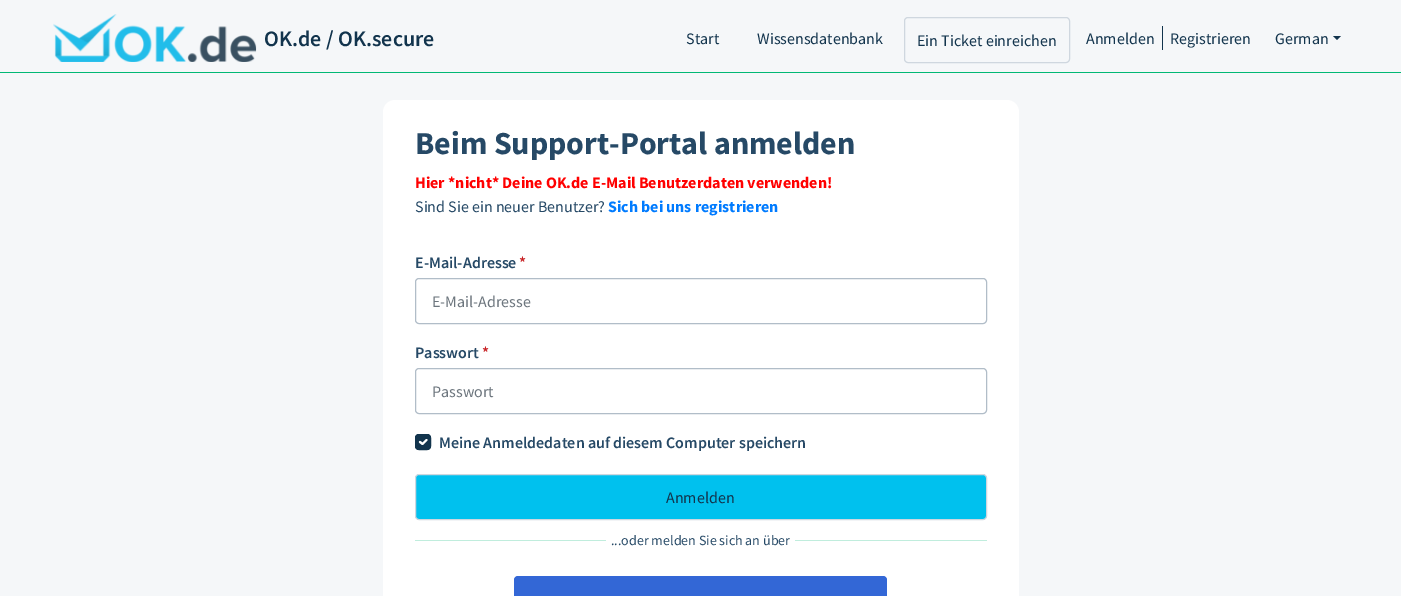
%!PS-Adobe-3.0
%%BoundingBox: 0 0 1401 596
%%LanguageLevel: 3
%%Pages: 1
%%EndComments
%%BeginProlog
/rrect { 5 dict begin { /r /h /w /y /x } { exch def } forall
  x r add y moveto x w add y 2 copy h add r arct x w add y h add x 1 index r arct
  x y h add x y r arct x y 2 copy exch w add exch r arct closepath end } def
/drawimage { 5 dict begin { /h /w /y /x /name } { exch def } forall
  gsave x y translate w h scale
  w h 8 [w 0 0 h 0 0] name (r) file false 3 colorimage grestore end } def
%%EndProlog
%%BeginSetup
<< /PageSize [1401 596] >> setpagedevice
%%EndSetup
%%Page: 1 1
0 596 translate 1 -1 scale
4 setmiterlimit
0.961 0.969 0.976 setrgbcolor
0 0 1401 596 rectfill
0.008 0.722 0.459 setrgbcolor
0 72 1401 1 rectfill
(images/1.raw) 53 14 204 48 drawimage
0.812 0.843 0.875 setrgbcolor
904.5 17.5 165 45 3.5 rrect stroke
0.071 0.204 0.302 setrgbcolor
1162 26 1 24 rectfill
newpath 1333 36 moveto 1341 36 lineto 1337 40 lineto closepath fill
1 setgray
383 100 636 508 12 rrect fill
0.694 0.741 0.784 setrgbcolor
415.5 278.5 571 45 3.5 rrect stroke
415.5 368.5 571 45 3.5 rrect stroke
0.071 0.204 0.302 setrgbcolor
415 434 16 16 4 rrect fill
1 setgray
2.1 setlinewidth
1 setlinecap
1 setlinejoin
newpath 420 442 moveto 422.5 444 lineto 426.5 440 lineto stroke
0.071 0.204 0.302 setrgbcolor
1 setlinewidth
0 setlinecap
0 setlinejoin
415.5 434.5 15 15 3.5 rrect stroke
0 0.757 0.933 setrgbcolor
415.5 474.5 571 45 3.5 rrect gsave fill grestore
0.812 0.843 0.875 setrgbcolor
stroke
0.753 0.929 0.867 setrgbcolor
415 540 572 1 rectfill
1 setgray
606 540 189 1 rectfill
0.2 0.404 0.839 setrgbcolor
514 576 373 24 4 rrect fill
/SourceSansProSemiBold-SemiBold [22 0 0 -22 0 0] selectfont
0.071 0.204 0.302 setrgbcolor
264 46 moveto (OK.de / OK.secure) show
/SourceSansPro-Regular [16 0 0 -16 0 0] selectfont
686 44 moveto (Start) show
757 44 moveto (Wissensdatenbank) show
917 46 moveto (Ein Ticket einreichen) show
1086 44 moveto (Anmelden) show
1170 44 moveto (Registrieren) show
1275 44 moveto (German) show
/SourceSansPro-Bold [32 0 0 -32 0 0] selectfont
0.149 0.286 0.4 setrgbcolor
415 154 moveto (Beim Support-Portal anmelden) show
/SourceSansPro-Bold [16 0 0 -16 0 0] selectfont
1 0 0 setrgbcolor
415 188 moveto (Hier *nicht* Deine OK.de E-Mail Benutzerdaten verwenden!) show
/SourceSansPro-Regular [16 0 0 -16 0 0] selectfont
0.149 0.286 0.4 setrgbcolor
415 212 moveto (Sind Sie ein neuer Benutzer?) show
/SourceSansPro-Bold [16 0 0 -16 0 0] selectfont
0 0.482 1 setrgbcolor
608 212 moveto (Sich bei uns registrieren) show
/SourceSansProSemiBold-SemiBold [16 0 0 -16 0 0] selectfont
0.149 0.286 0.4 setrgbcolor
415 268 moveto (E-Mail-Adresse) show
0.784 0.129 0.141 setrgbcolor
519 268 moveto (*) show
/SourceSansPro-Regular [16 0 0 -16 0 0] selectfont
0.424 0.459 0.49 setrgbcolor
432 307 moveto (E-Mail-Adresse) show
/SourceSansProSemiBold-SemiBold [16 0 0 -16 0 0] selectfont
0.149 0.286 0.4 setrgbcolor
415 358 moveto (Passwort) show
0.784 0.129 0.141 setrgbcolor
482 358 moveto (*) show
/SourceSansPro-Regular [16 0 0 -16 0 0] selectfont
0.424 0.459 0.49 setrgbcolor
432 397 moveto (Passwort) show
/SourceSansProSemiBold-SemiBold [16 0 0 -16 0 0] selectfont
0.149 0.286 0.4 setrgbcolor
439 448 moveto (Meine Anmeldedaten auf diesem Computer speichern) show
/SourceSansPro-Regular [16 0 0 -16 0 0] selectfont
0.071 0.204 0.302 setrgbcolor
666 503 moveto (Anmelden) show
/SourceSansPro-Regular [14 0 0 -14 0 0] selectfont
0.149 0.286 0.4 setrgbcolor
611 545 moveto (...oder melden Sie sich an über) show
showpage
%%EOF
